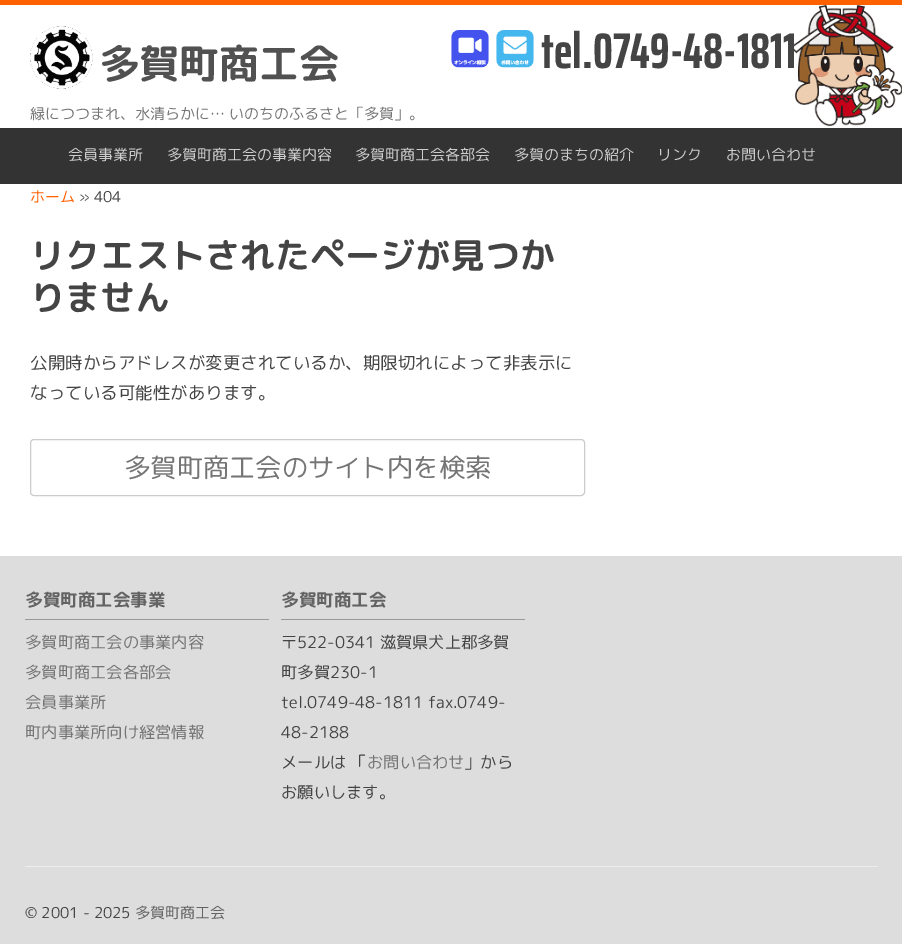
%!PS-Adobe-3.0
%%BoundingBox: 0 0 902 944
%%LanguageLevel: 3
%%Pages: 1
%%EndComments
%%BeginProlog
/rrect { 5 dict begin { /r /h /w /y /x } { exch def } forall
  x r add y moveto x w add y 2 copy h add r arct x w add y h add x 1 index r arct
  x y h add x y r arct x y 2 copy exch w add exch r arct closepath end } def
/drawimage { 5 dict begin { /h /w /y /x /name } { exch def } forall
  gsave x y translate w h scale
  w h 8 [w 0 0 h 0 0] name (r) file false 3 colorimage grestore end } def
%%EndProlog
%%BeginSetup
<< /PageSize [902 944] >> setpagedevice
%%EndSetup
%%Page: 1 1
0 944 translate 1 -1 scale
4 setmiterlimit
1 setgray
0 0 902 944 rectfill
1 0.376 0 setrgbcolor
0 0 902 5 rectfill
(images/1.raw) 790 5 112 122 drawimage
(images/2.raw) 30 26 63 63 drawimage
(images/3.raw) 451 30 38 38 drawimage
(images/4.raw) 496 30 38 38 drawimage
0.2 setgray
0 128 902 56 rectfill
0.8 setgray
30.5 439.5 554 56 3.5 rrect stroke
0.867 setgray
0 556 902 388 rectfill
0.6 setgray
25 619 244 1 rectfill
281 619 244 1 rectfill
0.929 setgray
25 866 853 1 rectfill
/RoundedMplus1cBold-Bold [40 0 0 -40 0 0] selectfont
0.318 setgray
99 78 moveto (多賀町商工会) show
/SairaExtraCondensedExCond-Bold [50 0 0 -50 0 0] selectfont
0.267 setgray
541 68 moveto (tel.0749-48-1811) show
/RoundedMplus1c-Regular [15 0 0 -15 0 0] selectfont
0.459 setgray
30 119 moveto (緑につつまれ、水清らかに… いのちのふるさと「多賀」。) show
0.804 setgray
68 160 moveto (会員事業所) show
167 160 moveto (多賀町商工会の事業内容) show
355 160 moveto (多賀町商工会各部会) show
514 160 moveto (多賀のまちの紹介) show
657 160 moveto (リンク) show
726 160 moveto (お問い合わせ) show
1 0.376 0 setrgbcolor
30 202 moveto (ホーム) show
0.267 setgray
79 202 moveto (» 404) show
/RoundedMplus1cBold-Bold [35 0 0 -35 0 0] selectfont
30 268 moveto (リクエストされたページが見つか) show
30 310 moveto (りません) show
/RoundedMplus1c-Regular [17.5 0 0 -17.5 0 0] selectfont
30 369 moveto (公開時からアドレスが変更されているか、期限切れによって非表示に) show
30 399 moveto (なっている可能性があります。) show
/RoundedMplus1c-Regular [26.25 0 0 -26.25 0 0] selectfont
0.459 setgray
124 477 moveto (多賀町商工会のサイト内を検索) show
/RoundedMplus1cBold-Bold [17.5 0 0 -17.5 0 0] selectfont
0.388 setgray
25 606 moveto (多賀町商工会事業) show
/RoundedMplus1c-Regular [16.25 0 0 -16.25 0 0] selectfont
0.459 setgray
25 648 moveto (多賀町商工会の事業内容) show
25 678 moveto (多賀町商工会各部会) show
25 708 moveto (会員事業所) show
25 738 moveto (町内事業所向け経営情報) show
/RoundedMplus1cBold-Bold [17.5 0 0 -17.5 0 0] selectfont
0.388 setgray
281 606 moveto (多賀町商工会) show
/RoundedMplus1c-Regular [16.25 0 0 -16.25 0 0] selectfont
0.267 setgray
281 648 moveto (〒522-0341 滋賀県犬上郡多賀) show
281 678 moveto (町多賀230-1) show
281 708 moveto (tel.0749-48-1811 fax.0749-) show
281 738 moveto (48-2188) show
281 768 moveto (メールは 「) show
0.459 setgray
367 768 moveto (お問い合わせ) show
0.267 setgray
464 768 moveto (」から) show
281 798 moveto (お願いします。) show
/RoundedMplus1c-Regular [15 0 0 -15 0 0] selectfont
25 918 moveto (© 2001 - 2025) show
0.388 setgray
135 918 moveto (多賀町商工会) show
showpage
%%EOF
